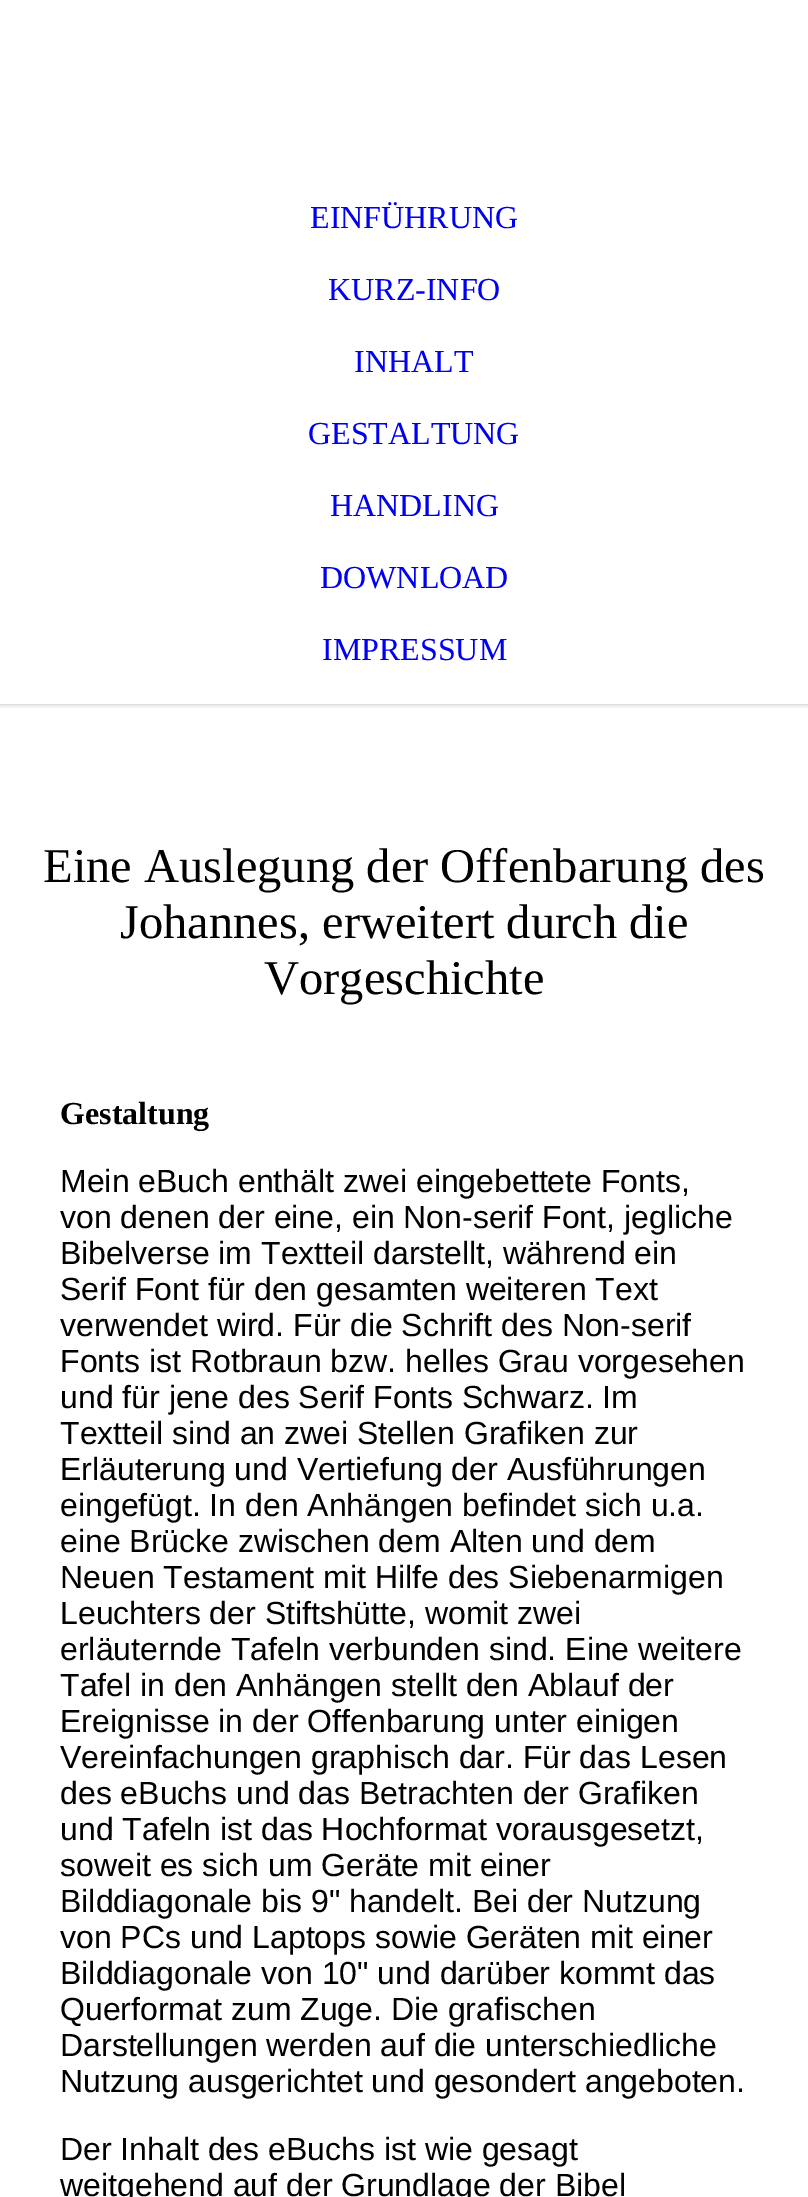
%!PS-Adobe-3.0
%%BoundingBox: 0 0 808 2197
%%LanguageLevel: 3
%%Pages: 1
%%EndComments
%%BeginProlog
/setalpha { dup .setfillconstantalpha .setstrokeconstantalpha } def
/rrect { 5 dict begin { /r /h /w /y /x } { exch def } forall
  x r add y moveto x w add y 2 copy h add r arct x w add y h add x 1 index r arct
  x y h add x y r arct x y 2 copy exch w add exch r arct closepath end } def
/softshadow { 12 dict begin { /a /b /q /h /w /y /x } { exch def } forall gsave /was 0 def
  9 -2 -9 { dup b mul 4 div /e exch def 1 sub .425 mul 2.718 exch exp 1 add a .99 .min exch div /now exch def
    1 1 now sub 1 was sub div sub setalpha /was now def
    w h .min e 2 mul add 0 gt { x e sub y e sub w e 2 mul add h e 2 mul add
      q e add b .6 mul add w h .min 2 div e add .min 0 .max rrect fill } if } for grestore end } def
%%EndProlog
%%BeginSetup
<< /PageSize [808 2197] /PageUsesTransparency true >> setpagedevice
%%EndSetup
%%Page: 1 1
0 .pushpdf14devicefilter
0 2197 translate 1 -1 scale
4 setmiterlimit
1 setgray
0 0 808 2197 rectfill
gsave
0 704 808 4 rectclip
0 setgray
0 0 808 704 0 3 0.3 softshadow
grestore
/LiberationSerif-Regular [32 0 0 -32 0 0] selectfont
0 0 0.933 setrgbcolor
310 228 moveto (EINFÜHRUNG) show
328 300 moveto (KURZ-INFO) show
354 372 moveto (INHALT) show
308 444 moveto (GESTALTUNG) show
330 516 moveto (HANDLING) show
320 588 moveto (DOWNLOAD) show
322 660 moveto (IMPRESSUM) show
/LiberationSerif-Regular [48.5 0 0 -48.5 0 0] selectfont
0 setgray
43 882 moveto (Eine Auslegung der Offenbarung des) show
120 938 moveto (Johannes, erweitert durch die) show
264 994 moveto (Vorgeschichte) show
/LiberationSerif-Bold [32 0 0 -32 0 0] selectfont
60 1124 moveto (Gestaltung) show
/LiberationSans-Regular [32 0 0 -32 0 0] selectfont
60 1192 moveto (Mein eBuch enthält zwei eingebettete Fonts,) show
60 1228 moveto (von denen der eine, ein Non-serif Font, jegliche) show
60 1264 moveto (Bibelverse im Textteil darstellt, während ein) show
60 1300 moveto (Serif Font für den gesamten weiteren Text) show
60 1336 moveto (verwendet wird. Für die Schrift des Non-serif) show
60 1372 moveto (Fonts ist Rotbraun bzw. helles Grau vorgesehen) show
60 1408 moveto (und für jene des Serif Fonts Schwarz. Im) show
60 1444 moveto (Textteil sind an zwei Stellen Grafiken zur) show
60 1480 moveto (Erläuterung und Vertiefung der Ausführungen) show
60 1516 moveto (eingefügt. In den Anhängen befindet sich u.a.) show
60 1552 moveto (eine Brücke zwischen dem Alten und dem) show
60 1588 moveto (Neuen Testament mit Hilfe des Siebenarmigen) show
60 1624 moveto (Leuchters der Stiftshütte, womit zwei) show
60 1660 moveto (erläuternde Tafeln verbunden sind. Eine weitere) show
60 1696 moveto (Tafel in den Anhängen stellt den Ablauf der) show
60 1732 moveto (Ereignisse in der Offenbarung unter einigen) show
60 1768 moveto (Vereinfachungen graphisch dar. Für das Lesen) show
60 1804 moveto (des eBuchs und das Betrachten der Grafiken) show
60 1840 moveto (und Tafeln ist das Hochformat vorausgesetzt,) show
60 1876 moveto (soweit es sich um Geräte mit einer) show
60 1912 moveto (Bilddiagonale bis 9" handelt. Bei der Nutzung) show
60 1948 moveto (von PCs und Laptops sowie Geräten mit einer) show
60 1984 moveto (Bilddiagonale von 10" und darüber kommt das) show
60 2020 moveto (Querformat zum Zuge. Die grafischen) show
60 2056 moveto (Darstellungen werden auf die unterschiedliche) show
60 2092 moveto (Nutzung ausgerichtet und gesondert angeboten.) show
60 2160 moveto (Der Inhalt des eBuchs ist wie gesagt) show
60 2196 moveto (weitgehend auf der Grundlage der Bibel) show
.poppdf14devicefilter showpage
%%EOF
